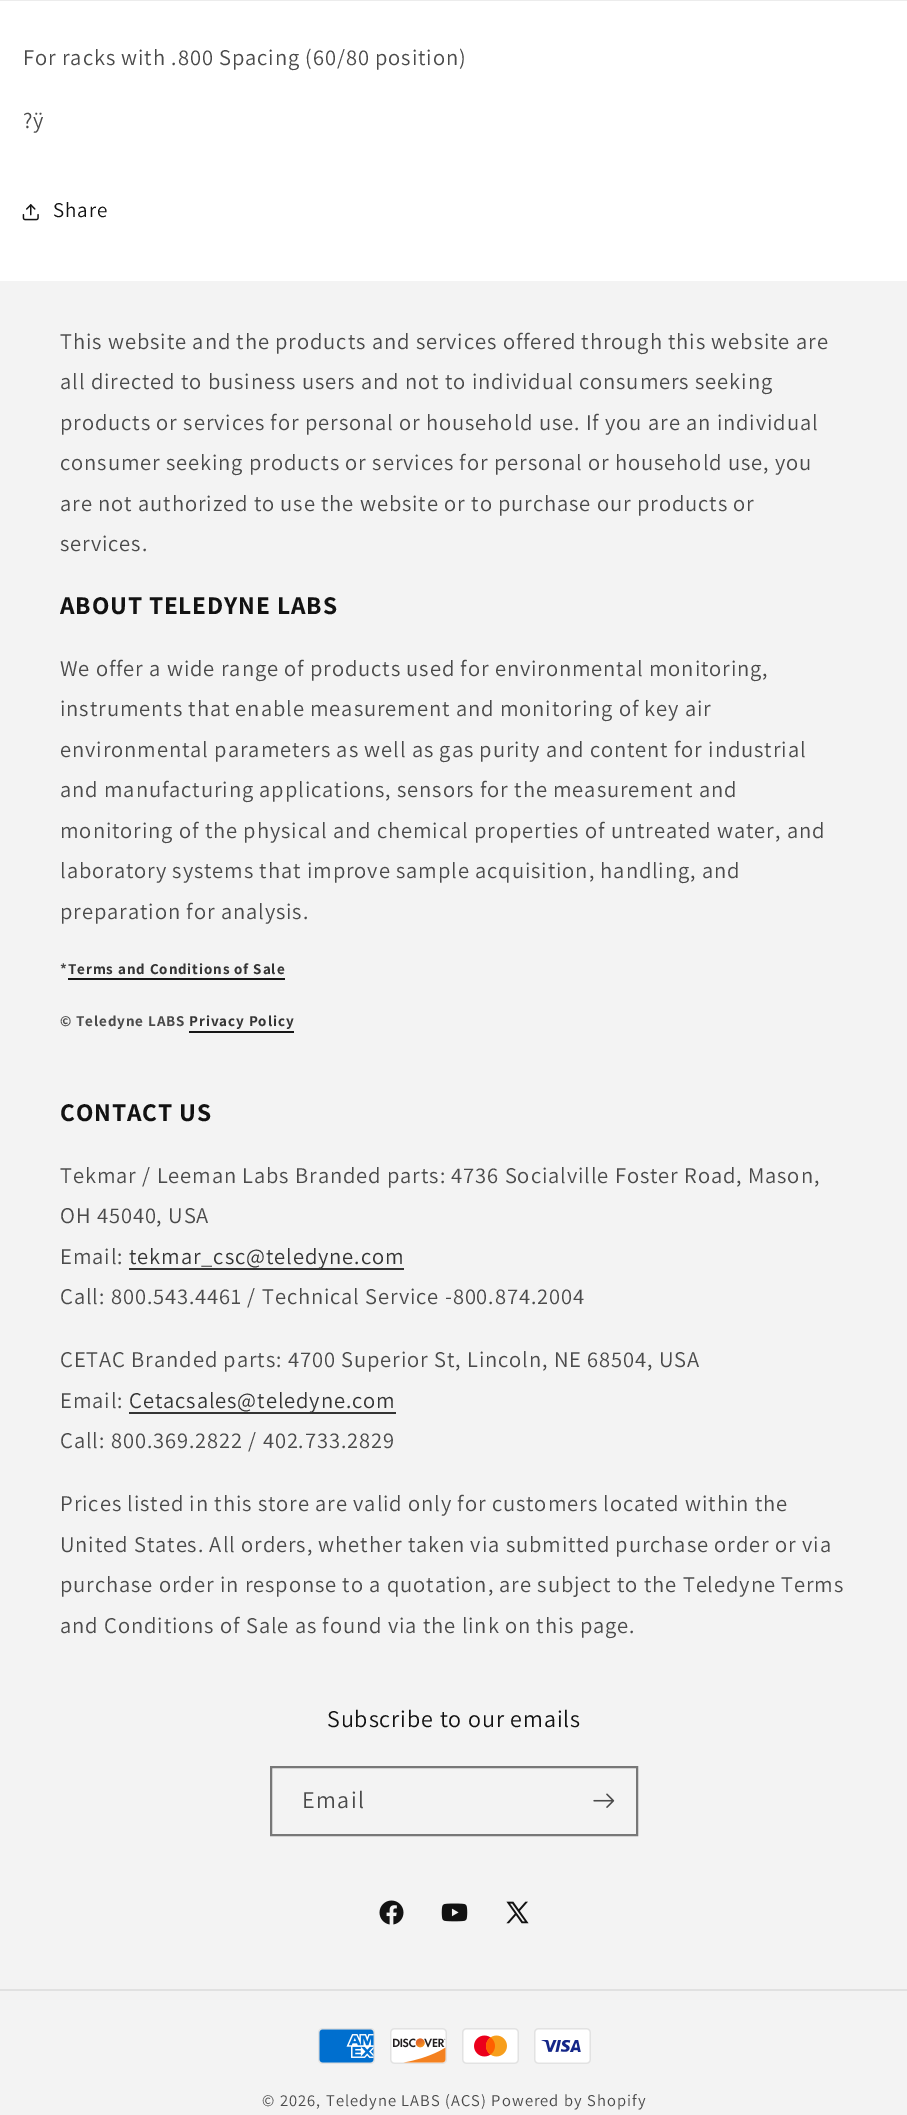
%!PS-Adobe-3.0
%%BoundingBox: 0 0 907 2115
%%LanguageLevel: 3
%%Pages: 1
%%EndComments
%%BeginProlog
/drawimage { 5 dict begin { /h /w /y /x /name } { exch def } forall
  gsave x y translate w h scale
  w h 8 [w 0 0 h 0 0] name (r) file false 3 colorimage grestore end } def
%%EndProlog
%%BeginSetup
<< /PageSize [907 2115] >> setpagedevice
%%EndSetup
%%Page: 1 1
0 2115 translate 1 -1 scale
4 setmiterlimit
1 setgray
0 0 907 2115 rectfill
0.925 setgray
0 0 907 1 rectfill
(images/1.raw) 22 204 17 17 drawimage
0.953 setgray
0 281 907 1834 rectfill
0.09 setgray
68 978 217 2 rectfill
189 1031 105 2 rectfill
0.204 setgray
129 1268 275 2 rectfill
129 1412 267 2 rectfill
0.467 setgray
2 setlinewidth
271 1767 366 68 rectstroke
(images/2.raw) 593 1793 22 15 drawimage
(images/3.raw) 379 1900 25 25 drawimage
(images/4.raw) 441 1903 27 19 drawimage
(images/5.raw) 506 1901 23 23 drawimage
0.882 setgray
0 1989 907 2 rectfill
(images/6.raw) 318 2028 57 36 drawimage
(images/7.raw) 390 2028 57 36 drawimage
(images/8.raw) 462 2028 57 36 drawimage
(images/9.raw) 534 2028 57 36 drawimage
/Assistant-Regular [22.5 0 0 -22.5 0 0] selectfont
0.29 setgray
23 65 moveto 0.9 0 (For racks with .800 Spacing \(60/80 position\)) ashow
23 128 moveto 0.9 0 (?ÿ) ashow
/Assistant-Regular [21 0 0 -21 0 0] selectfont
0.071 setgray
53 217 moveto 0.9 0 (Share) ashow
/Assistant-Regular [22.5 0 0 -22.5 0 0] selectfont
0.29 setgray
60 349 moveto 0.9 0 (This website and the products and services offered through this website are) ashow
60 389 moveto 0.9 0 (all directed to business users and not to individual consumers seeking) ashow
60 430 moveto 0.9 0 (products or services for personal or household use. If you are an individual) ashow
60 470 moveto 0.9 0 (consumer seeking products or services for personal or household use, you) ashow
60 511 moveto 0.9 0 (are not authorized to use the website or to purchase our products or) ashow
60 551 moveto 0.9 0 (services.) ashow
/Assistant-Bold [25.5 0 0 -25.5 0 0] selectfont
0.071 setgray
60 614 moveto 0.9 0 (ABOUT TELEDYNE LABS) ashow
/Assistant-Regular [22.5 0 0 -22.5 0 0] selectfont
0.29 setgray
60 676 moveto 0.9 0 (We offer a wide range of products used for environmental monitoring,) ashow
60 716 moveto 0.9 0 (instruments that enable measurement and monitoring of key air) ashow
60 757 moveto 0.9 0 (environmental parameters as well as gas purity and content for industrial) ashow
60 797 moveto 0.9 0 (and manufacturing applications, sensors for the measurement and) ashow
60 838 moveto 0.9 0 (monitoring of the physical and chemical properties of untreated water, and) ashow
60 878 moveto 0.9 0 (laboratory systems that improve sample acquisition, handling, and) ashow
60 919 moveto 0.9 0 (preparation for analysis.) ashow
/Assistant-Bold [15.1 0 0 -15.1 0 0] selectfont
60 974 moveto 0.9 0 (*) ashow
0.204 setgray
68 974 moveto 0.9 0 (Terms and Conditions of Sale) ashow
0.29 setgray
60 1026 moveto 0.9 0 (© Teledyne LABS) ashow
0.204 setgray
189 1026 moveto 0.9 0 (Privacy Policy) ashow
/Assistant-Bold [25.5 0 0 -25.5 0 0] selectfont
0.071 setgray
60 1121 moveto 0.9 0 (CONTACT US) ashow
/Assistant-Regular [22.5 0 0 -22.5 0 0] selectfont
0.29 setgray
60 1183 moveto 0.9 0 (Tekmar / Leeman Labs Branded parts: 4736 Socialville Foster Road, Mason,) ashow
60 1223 moveto 0.9 0 (OH 45040, USA) ashow
60 1264 moveto 0.9 0 (Email:) ashow
0.204 setgray
129 1264 moveto 0.9 0 (tekmar_csc@teledyne.com) ashow
0.29 setgray
60 1304 moveto 0.9 0 (Call: 800.543.4461 / Technical Service -800.874.2004) ashow
60 1367 moveto 0.9 0 (CETAC Branded parts: 4700 Superior St, Lincoln, NE 68504, USA) ashow
60 1408 moveto 0.9 0 (Email:) ashow
0.204 setgray
129 1408 moveto 0.9 0 (Cetacsales@teledyne.com) ashow
0.29 setgray
60 1448 moveto 0.9 0 (Call: 800.369.2822 / 402.733.2829) ashow
60 1511 moveto 0.9 0 (Prices listed in this store are valid only for customers located within the) ashow
60 1552 moveto 0.9 0 (United States. All orders, whether taken via submitted purchase order or via) ashow
60 1592 moveto 0.9 0 (purchase order in response to a quotation, are subject to the Teledyne Terms) ashow
60 1633 moveto 0.9 0 (and Conditions of Sale as found via the link on this page.) ashow
/Assistant-Regular [24 0 0 -24 0 0] selectfont
0.071 setgray
327 1727 moveto 0.9 0 (Subscribe to our emails) ashow
0.29 setgray
302 1808 moveto 1.5 0 (Email) ashow
/Assistant-Regular [16.5 0 0 -16.5 0 0] selectfont
262 2106 moveto 1.05 0 (© 2026, Teledyne LABS \(ACS\) Powered by Shopify) ashow
showpage
%%EOF
